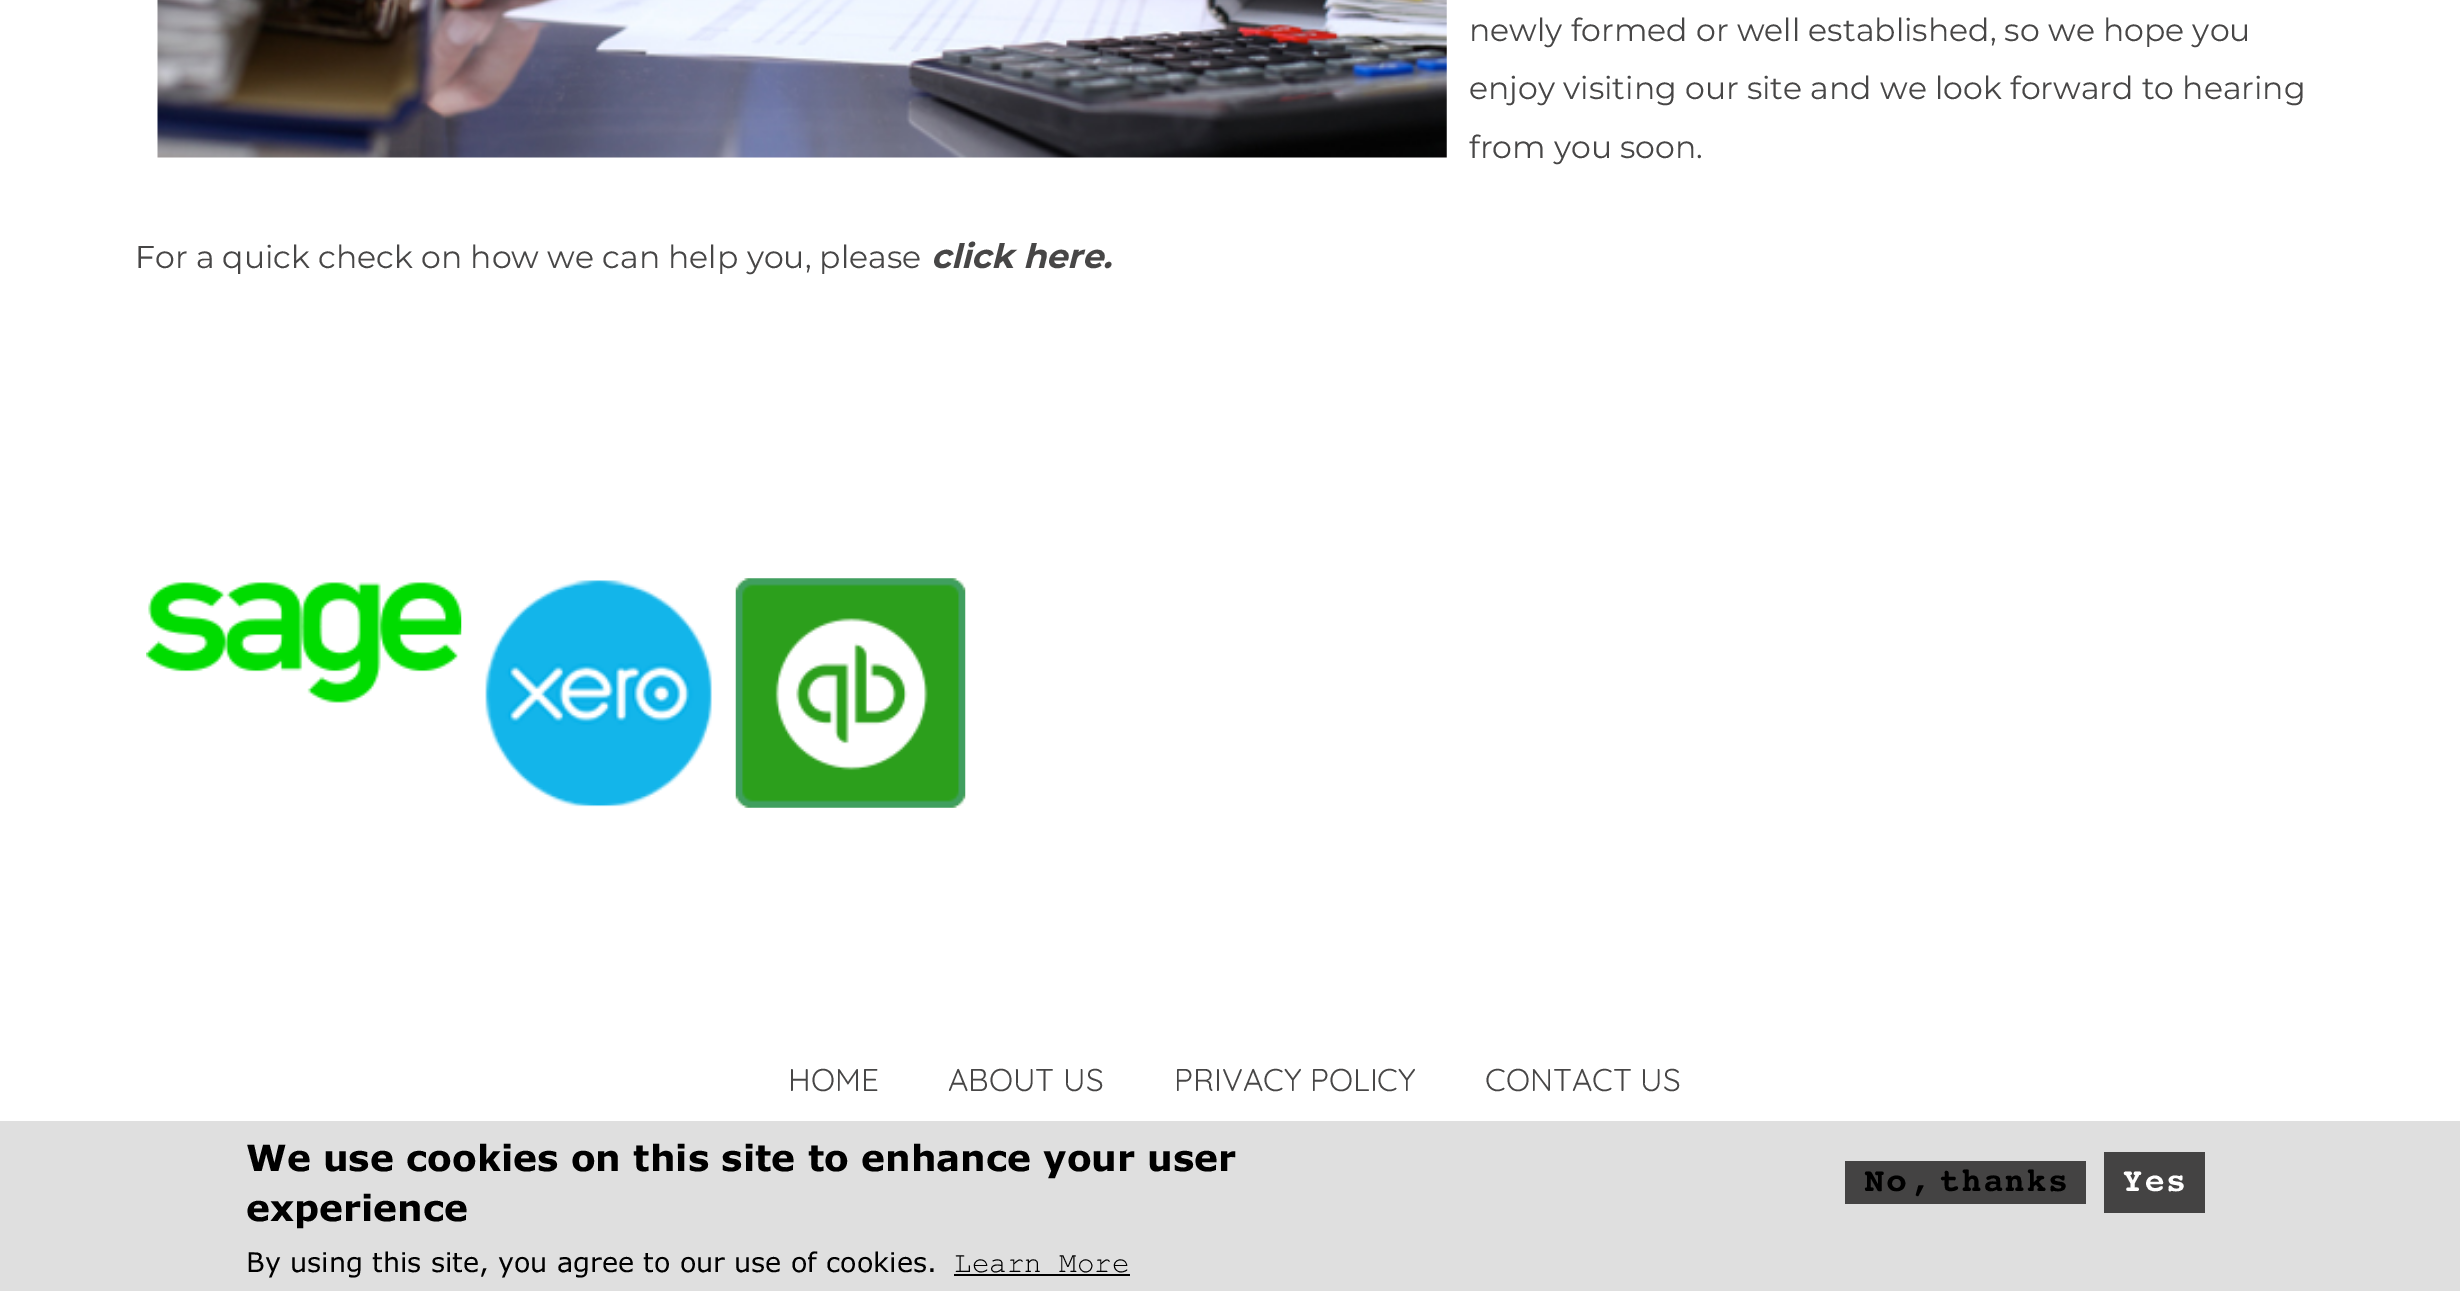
%!PS-Adobe-3.0
%%BoundingBox: 0 0 2460 1291
%%LanguageLevel: 3
%%Pages: 1
%%EndComments
%%BeginProlog
/drawimage { 5 dict begin { /h /w /y /x /name } { exch def } forall
  gsave x y translate w h scale
  w h 8 [w 0 0 h 0 0] name (r) file false 3 colorimage grestore end } def
%%EndProlog
%%BeginSetup
<< /PageSize [2460 1291] >> setpagedevice
%%EndSetup
%%Page: 1 1
0 1291 translate 1 -1 scale
4 setmiterlimit
1 setgray
0 0 2460 1291 rectfill
(images/1.raw) 157 0 1290 158 drawimage
(images/2.raw) 146 582 316 121 drawimage
(images/3.raw) 485 580 227 227 drawimage
(images/4.raw) 735 578 231 230 drawimage
0.875 setgray
0 1121 2460 170 rectfill
0 setgray
954 1274 176 2 rectfill
0.267 0.263 0.263 setrgbcolor
1845 1161 241 43 rectfill
2104 1152 101 61 rectfill
/Montserrat-Regular [31.5 0 0 -31.5 0 0] selectfont
0.278 0.275 0.275 setrgbcolor
1469 41 moveto (newly formed or well established, so we hope you) show
1469 99 moveto (enjoy visiting our site and we look forward to hearing) show
1469 158 moveto (from you soon.) show
135 268 moveto (For a quick check on how we can help you, please) show
/Montserrat-BoldItalic [33.75 0 0 -33.75 0 0] selectfont
931 268 moveto (click here.) show
/Quicksand-Light [31.5 0 0 -31.5 0 0] selectfont
788 1091 moveto (HOME) show
948 1091 moveto (ABOUT US) show
1174 1091 moveto (PRIVACY POLICY) show
1485 1091 moveto (CONTACT US) show
/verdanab-Bold [36 0 0 -36 0 0] selectfont
0 setgray
246 1171 moveto (We use cookies on this site to enhance your user) show
246 1221 moveto (experience) show
/verdana-Regular [27 0 0 -27 0 0] selectfont
246 1272 moveto (By using this site, you agree to our use of cookies.) show
/CourierNew-Regular [29.25 0 0 -29.25 0 0] selectfont
954 1272 moveto (Learn More) show
/Courier-Bold [31.5 0 0 -31.5 0 0] selectfont
1863 1191 moveto (No, thanks) show
1 setgray
2121 1191 moveto (Yes) show
showpage
%%EOF
